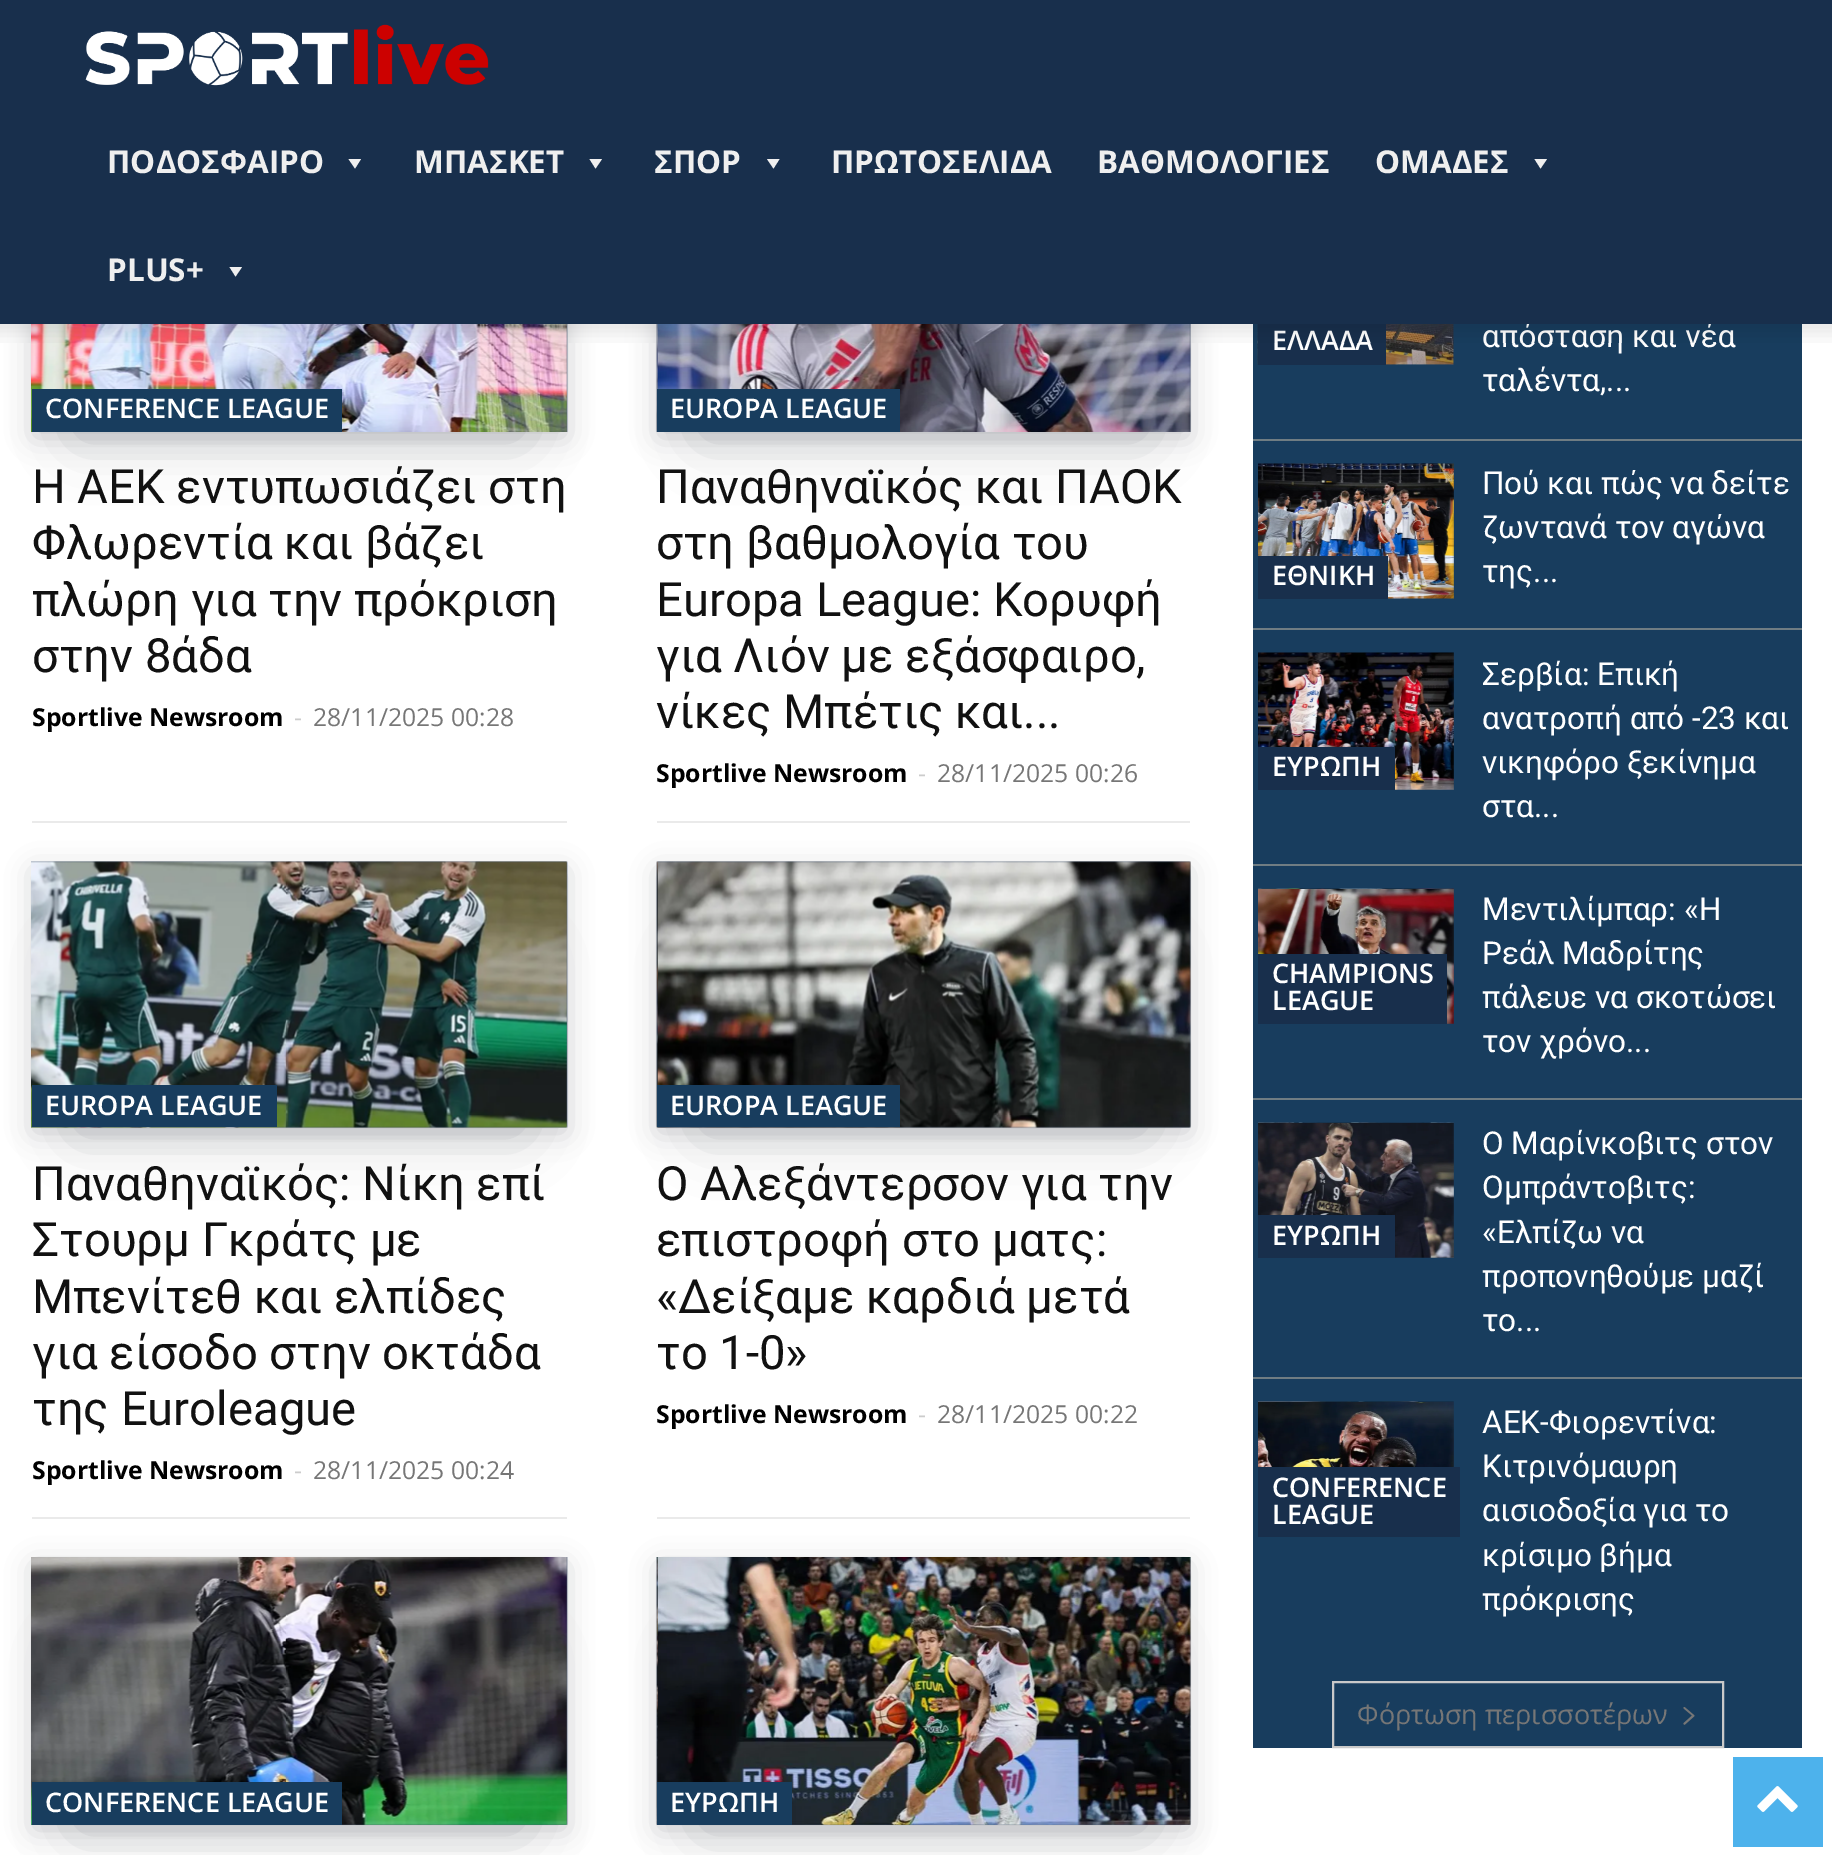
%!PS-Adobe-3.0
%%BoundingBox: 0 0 1832 1855
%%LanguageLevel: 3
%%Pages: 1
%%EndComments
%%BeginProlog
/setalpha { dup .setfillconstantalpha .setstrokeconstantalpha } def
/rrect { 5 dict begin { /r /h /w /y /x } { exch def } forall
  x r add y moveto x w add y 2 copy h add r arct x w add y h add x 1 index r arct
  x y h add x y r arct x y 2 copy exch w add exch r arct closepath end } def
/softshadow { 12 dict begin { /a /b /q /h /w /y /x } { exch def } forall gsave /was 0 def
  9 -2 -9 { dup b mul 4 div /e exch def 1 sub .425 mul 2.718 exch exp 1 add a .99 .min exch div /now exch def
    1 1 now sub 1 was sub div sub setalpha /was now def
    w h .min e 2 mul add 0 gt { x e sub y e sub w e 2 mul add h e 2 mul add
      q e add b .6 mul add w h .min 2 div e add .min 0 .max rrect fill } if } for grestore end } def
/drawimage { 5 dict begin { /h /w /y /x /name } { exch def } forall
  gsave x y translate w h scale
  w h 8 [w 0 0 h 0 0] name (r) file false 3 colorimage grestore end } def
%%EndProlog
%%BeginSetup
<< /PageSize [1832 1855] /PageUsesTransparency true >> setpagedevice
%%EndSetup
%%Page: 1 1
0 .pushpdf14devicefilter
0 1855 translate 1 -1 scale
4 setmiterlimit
1 setgray
0 0 1832 1855 rectfill
(images/4.raw) 566 324 2 108 drawimage
0.027 0.039 0.098 setrgbcolor
77 259 445 178 0 30.5 0.2 softshadow
34 173 531 264 0 13.5 0.2 softshadow
(images/3.raw) 31 324 536 108 drawimage
0.094 0.239 0.369 setrgbcolor
32 389 310 43 rectfill
0.918 setgray
32 821 535 2 rectfill
(images/6.raw) 656 324 535 108 drawimage
0.027 0.039 0.098 setrgbcolor
702 259 443 178 0 30.5 0.2 softshadow
659 173 529 264 0 13.5 0.2 softshadow
(images/5.raw) 656 324 535 108 drawimage
0.094 0.239 0.369 setrgbcolor
657 389 243 43 rectfill
0.918 setgray
657 821 533 2 rectfill
(images/8.raw) 31 861 537 267 drawimage
0.027 0.039 0.098 setrgbcolor
77 956 445 176 0 30.5 0.2 softshadow
34 871 531 261 0 13.5 0.2 softshadow
(images/7.raw) 31 861 536 267 drawimage
0.094 0.239 0.369 setrgbcolor
32 1085 245 42 rectfill
0.918 setgray
32 1517 535 2 rectfill
(images/10.raw) 656 861 535 267 drawimage
0.027 0.039 0.098 setrgbcolor
702 956 443 176 0 30.5 0.2 softshadow
659 871 529 261 0 13.5 0.2 softshadow
(images/9.raw) 656 861 535 267 drawimage
0.094 0.239 0.369 setrgbcolor
657 1085 243 42 rectfill
0.918 setgray
657 1517 533 2 rectfill
(images/12.raw) 31 1557 537 268 drawimage
0.027 0.039 0.098 setrgbcolor
77 1652 445 177 0 30.5 0.2 softshadow
34 1566 531 263 0 13.5 0.2 softshadow
(images/11.raw) 31 1557 536 268 drawimage
0.094 0.239 0.369 setrgbcolor
32 1782 310 43 rectfill
(images/14.raw) 656 1557 535 268 drawimage
0.027 0.039 0.098 setrgbcolor
702 1652 443 177 0 30.5 0.2 softshadow
659 1566 529 263 0 13.5 0.2 softshadow
(images/13.raw) 656 1557 535 268 drawimage
0.094 0.239 0.369 setrgbcolor
657 1782 135 43 rectfill
1253 324 549 1424 rectfill
(images/15.raw) 1257 324 197 41 drawimage
0.094 0.184 0.298 setrgbcolor
1258 324 128 41 rectfill
0.439 0.49 0.514 setrgbcolor
1253 439 549 2 rectfill
(images/16.raw) 1258 463 196 136 drawimage
0.094 0.184 0.298 setrgbcolor
1258 556 130 43 rectfill
0.439 0.49 0.514 setrgbcolor
1253 628 549 2 rectfill
(images/17.raw) 1258 652 196 138 drawimage
0.094 0.184 0.298 setrgbcolor
1258 747 137 43 rectfill
0.439 0.49 0.514 setrgbcolor
1253 864 549 2 rectfill
(images/18.raw) 1258 888 196 136 drawimage
0.094 0.184 0.298 setrgbcolor
1258 954 189 70 rectfill
0.439 0.49 0.514 setrgbcolor
1253 1098 549 2 rectfill
(images/19.raw) 1258 1122 196 136 drawimage
0.094 0.184 0.298 setrgbcolor
1258 1215 137 43 rectfill
0.439 0.49 0.514 setrgbcolor
1253 1377 549 2 rectfill
(images/20.raw) 1258 1401 196 66 drawimage
0.094 0.184 0.298 setrgbcolor
1258 1467 202 70 rectfill
0.788 setgray
2 setlinewidth
1333 1682 390 65 rectstroke
(images/21.raw) 1683 1707 12 18 drawimage
0.302 0.698 0.925 setrgbcolor
1733 1757 90 90 rectfill
(images/22.raw) 1757 1786 41 26 drawimage
/OpenSans-SemiBold [27 0 0 -27 0 0] selectfont
1 setgray
45 418 moveto (CONFERENCE LEAGUE) show
/Roboto-Regular [47.25 0 0 -47.25 0 0] selectfont
0.067 setgray
32 503 moveto (Η ΑΕΚ εντυπωσιάζει στη) show
32 559 moveto (Φλωρεντία και βάζει) show
32 616 moveto (πλώρη για την πρόκριση) show
32 672 moveto (στην 8άδα) show
/OpenSans-Bold [24.75 0 0 -24.75 0 0] selectfont
0 setgray
32 726 moveto (Sportlive Newsroom) show
/OpenSans-Regular [24.75 0 0 -24.75 0 0] selectfont
0.8 setgray
294 726 moveto (-) show
0.463 setgray
313 726 moveto (28/11/2025 00:28) show
/OpenSans-SemiBold [27 0 0 -27 0 0] selectfont
1 setgray
670 418 moveto (EUROPA LEAGUE) show
/Roboto-Regular [47.25 0 0 -47.25 0 0] selectfont
0.067 setgray
656 503 moveto (Παναθηναϊκός και ΠΑΟΚ) show
656 559 moveto (στη βαθμολογία του) show
656 616 moveto (Europa League: Κορυφή) show
656 672 moveto (για Λιόν με εξάσφαιρο,) show
656 728 moveto (νίκες Μπέτις και...) show
/OpenSans-Bold [24.75 0 0 -24.75 0 0] selectfont
0 setgray
656 782 moveto (Sportlive Newsroom) show
/OpenSans-Regular [24.75 0 0 -24.75 0 0] selectfont
0.8 setgray
918 782 moveto (-) show
0.463 setgray
937 782 moveto (28/11/2025 00:26) show
/OpenSans-SemiBold [27 0 0 -27 0 0] selectfont
1 setgray
45 1115 moveto (EUROPA LEAGUE) show
/Roboto-Regular [47.25 0 0 -47.25 0 0] selectfont
0.067 setgray
32 1200 moveto (Παναθηναϊκός: Νίκη επί) show
32 1256 moveto (Στουρμ Γκράτς με) show
32 1313 moveto (Μπενίτεθ και ελπίδες) show
32 1369 moveto (για είσοδο στην οκτάδα) show
32 1425 moveto (της Euroleague) show
/OpenSans-Bold [24.75 0 0 -24.75 0 0] selectfont
0 setgray
32 1479 moveto (Sportlive Newsroom) show
/OpenSans-Regular [24.75 0 0 -24.75 0 0] selectfont
0.8 setgray
294 1479 moveto (-) show
0.463 setgray
313 1479 moveto (28/11/2025 00:24) show
/OpenSans-SemiBold [27 0 0 -27 0 0] selectfont
1 setgray
670 1115 moveto (EUROPA LEAGUE) show
/Roboto-Regular [47.25 0 0 -47.25 0 0] selectfont
0.067 setgray
656 1200 moveto (Ο Αλεξάντερσον για την) show
656 1256 moveto (επιστροφή στο ματς:) show
656 1313 moveto («Δείξαμε καρδιά μετά) show
656 1369 moveto (το 1-0») show
/OpenSans-Bold [24.75 0 0 -24.75 0 0] selectfont
0 setgray
656 1423 moveto (Sportlive Newsroom) show
/OpenSans-Regular [24.75 0 0 -24.75 0 0] selectfont
0.8 setgray
918 1423 moveto (-) show
0.463 setgray
937 1423 moveto (28/11/2025 00:22) show
/OpenSans-SemiBold [27 0 0 -27 0 0] selectfont
1 setgray
45 1812 moveto (CONFERENCE LEAGUE) show
670 1812 moveto (ΕΥΡΩΠΗ) show
1272 350 moveto (ΕΛΛΑΔΑ) show
/Roboto-Regular [31.5 0 0 -31.5 0 0] selectfont
1482 347 moveto (απόσταση και νέα) show
0.094 0.184 0.298 setrgbcolor
0 0 1832 324 rectfill
0.937 setgray
newpath 242 267 moveto 235.5 276.5 lineto 229.5 267 lineto closepath fill
/OpenSans-Bold [31.5 0 0 -31.5 0 0] selectfont
107 281 moveto (PLUS+) show
newpath 1547 159 moveto 1540.5 168.5 lineto 1534.5 159 lineto closepath fill
1375 173 moveto (ΟΜΑΔΕΣ) show
1097 173 moveto (ΒΑΘΜΟΛΟΓΙΕΣ) show
831 173 moveto (ΠΡΩΤΟΣΕΛΙΔΑ) show
newpath 779.5 159 moveto 773.5 168.5 lineto 767 159 lineto closepath fill
654 173 moveto (ΣΠΟΡ) show
newpath 602 159 moveto 595.5 168.5 lineto 589.5 159 lineto closepath fill
414 173 moveto (ΜΠΑΣΚΕΤ) show
newpath 361 159 moveto 355 168.5 lineto 348.5 159 lineto closepath fill
107 173 moveto (ΠΟΔΟΣΦΑΙΡΟ) show
(images/1.raw) 85 24 404 62 drawimage
(images/2.raw) 0 324 1832 19 drawimage
/Roboto-Regular [31.5 0 0 -31.5 0 0] selectfont
1 setgray
1482 391 moveto (ταλέντα,...) show
/OpenSans-SemiBold [27 0 0 -27 0 0] selectfont
1272 585 moveto (ΕΘΝΙΚΗ) show
/Roboto-Regular [31.5 0 0 -31.5 0 0] selectfont
1482 494 moveto (Πού και πώς να δείτε) show
1482 538 moveto (ζωντανά τον αγώνα) show
1482 582 moveto (της...) show
/OpenSans-SemiBold [27 0 0 -27 0 0] selectfont
1272 776 moveto (ΕΥΡΩΠΗ) show
/Roboto-Regular [31.5 0 0 -31.5 0 0] selectfont
1482 685 moveto (Σερβία: Επική) show
1482 729 moveto (ανατροπή από -23 και) show
1482 773 moveto (νικηφόρο ξεκίνημα) show
1482 817 moveto (στα...) show
/OpenSans-SemiBold [27 0 0 -27 0 0] selectfont
1272 983 moveto (CHAMPIONS) show
1272 1010 moveto (LEAGUE) show
/Roboto-Regular [31.5 0 0 -31.5 0 0] selectfont
1482 920 moveto (Μεντιλίμπαρ: «Η) show
1482 964 moveto (Ρεάλ Μαδρίτης) show
1482 1008 moveto (πάλευε να σκοτώσει) show
1482 1052 moveto (τον χρόνο...) show
/OpenSans-SemiBold [27 0 0 -27 0 0] selectfont
1272 1245 moveto (ΕΥΡΩΠΗ) show
/Roboto-Regular [31.5 0 0 -31.5 0 0] selectfont
1482 1154 moveto (Ο Μαρίνκοβιτς στον) show
1482 1198 moveto (Ομπράντοβιτς:) show
1482 1243 moveto («Ελπίζω να) show
1482 1287 moveto (προπονηθούμε μαζί) show
1482 1331 moveto (το...) show
/OpenSans-SemiBold [27 0 0 -27 0 0] selectfont
1272 1497 moveto (CONFERENCE) show
1272 1524 moveto (LEAGUE) show
/Roboto-Regular [31.5 0 0 -31.5 0 0] selectfont
1482 1433 moveto (ΑΕΚ-Φιορεντίνα:) show
1482 1477 moveto (Κιτρινόμαυρη) show
1482 1521 moveto (αισιοδοξία για το) show
1482 1566 moveto (κρίσιμο βήμα) show
1482 1610 moveto (πρόκρισης) show
/OpenSans-Regular [27 0 0 -27 0 0] selectfont
0.463 setgray
1357 1724 moveto (Φόρτωση περισσοτέρων) show
.poppdf14devicefilter showpage
%%EOF
